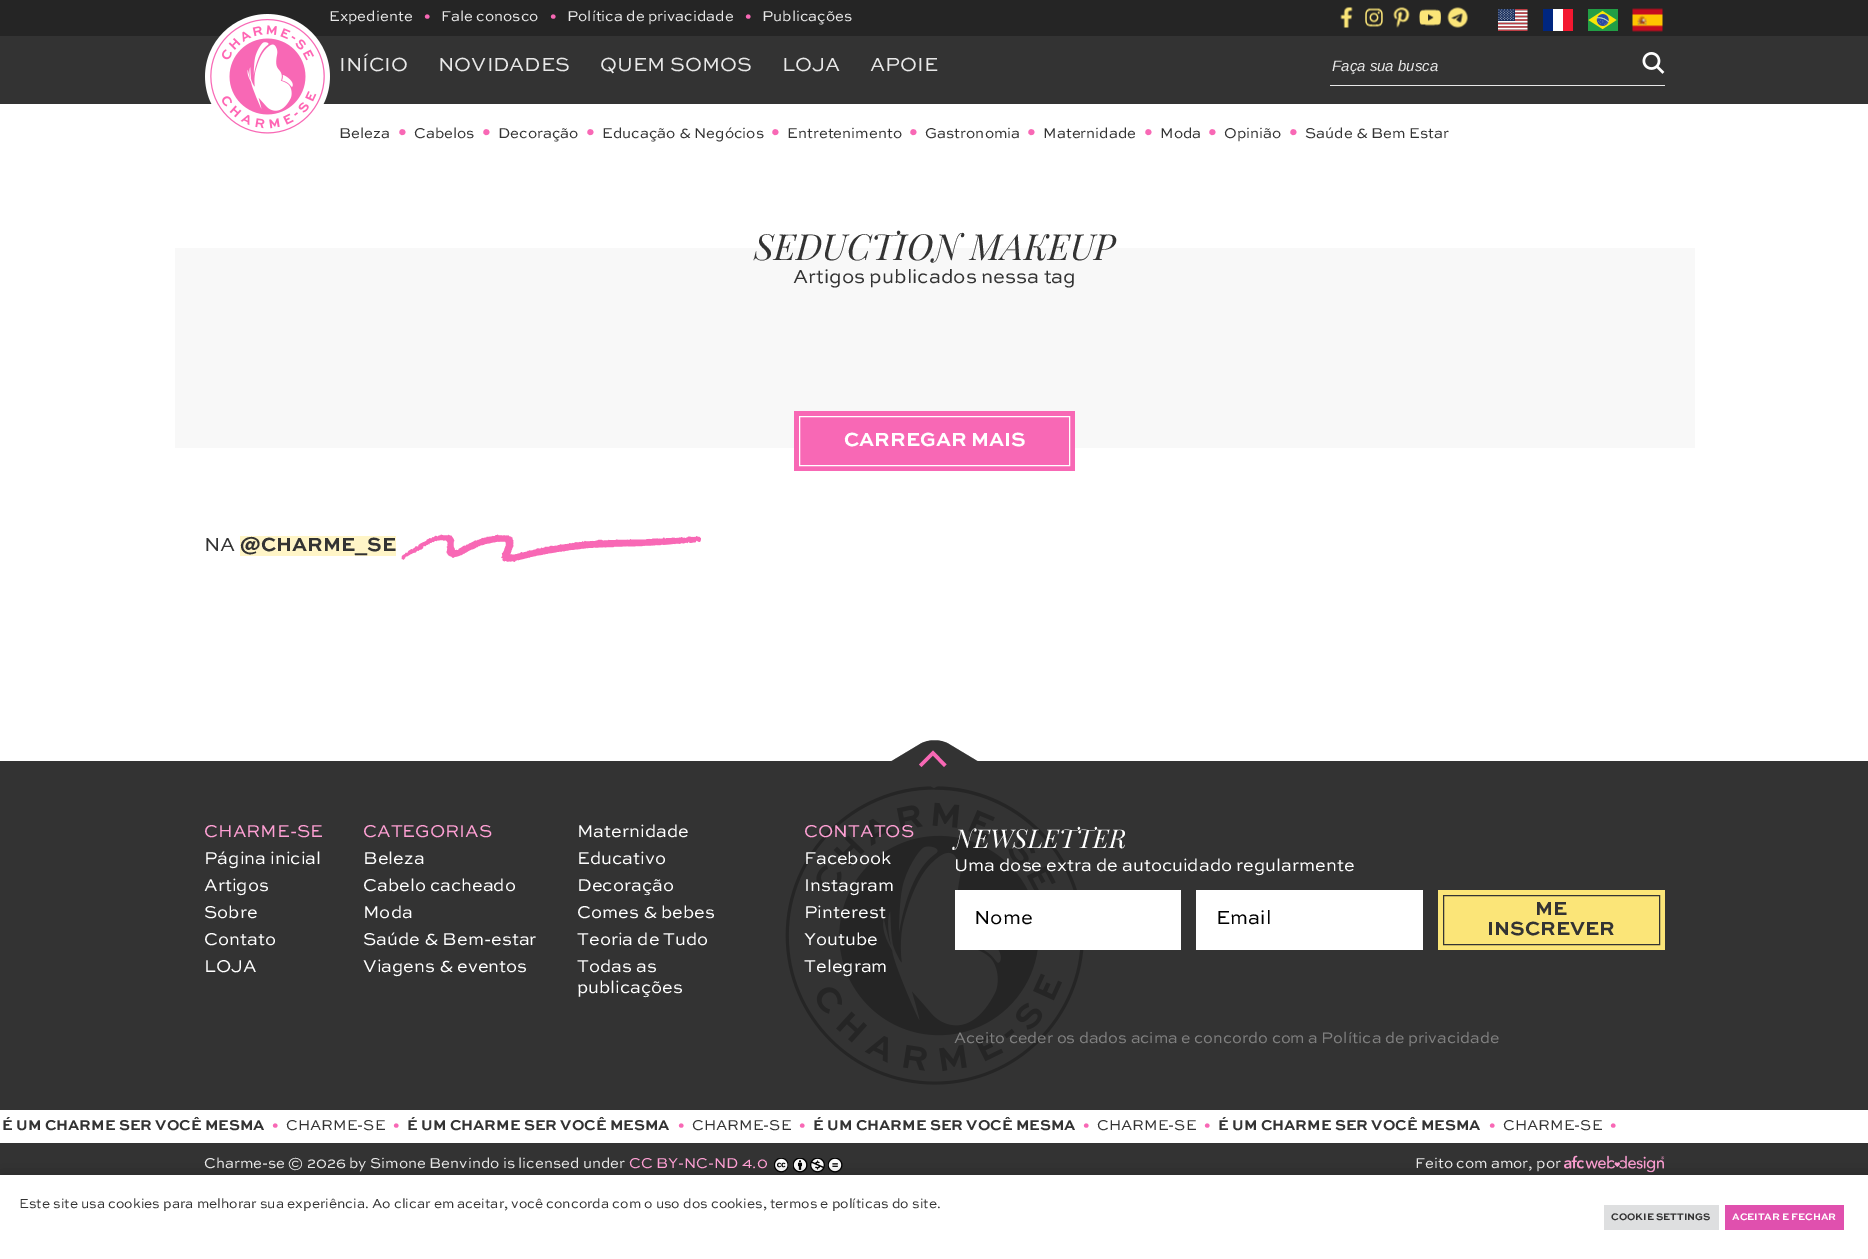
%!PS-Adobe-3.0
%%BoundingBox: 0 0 1868 1259
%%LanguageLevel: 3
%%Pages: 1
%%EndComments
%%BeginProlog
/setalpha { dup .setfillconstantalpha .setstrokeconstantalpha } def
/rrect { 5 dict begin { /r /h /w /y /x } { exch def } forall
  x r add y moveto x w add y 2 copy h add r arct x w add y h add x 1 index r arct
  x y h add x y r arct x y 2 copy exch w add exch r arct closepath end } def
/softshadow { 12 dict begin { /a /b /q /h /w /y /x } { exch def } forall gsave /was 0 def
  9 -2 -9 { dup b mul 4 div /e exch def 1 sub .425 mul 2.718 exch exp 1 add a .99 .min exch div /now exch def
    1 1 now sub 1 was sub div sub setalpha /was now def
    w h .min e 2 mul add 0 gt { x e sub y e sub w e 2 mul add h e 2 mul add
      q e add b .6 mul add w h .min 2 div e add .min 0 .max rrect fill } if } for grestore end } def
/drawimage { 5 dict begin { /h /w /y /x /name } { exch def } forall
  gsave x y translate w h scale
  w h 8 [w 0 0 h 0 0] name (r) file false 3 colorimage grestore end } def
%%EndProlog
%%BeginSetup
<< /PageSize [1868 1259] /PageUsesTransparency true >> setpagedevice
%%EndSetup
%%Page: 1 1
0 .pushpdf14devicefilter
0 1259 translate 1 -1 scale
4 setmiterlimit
1 setgray
0 0 1868 1259 rectfill
0.145 setgray
0 0 1868 36 rectfill
(images/1.raw) 1340 7 13 21 drawimage
(images/2.raw) 1365 8 18 19 drawimage
(images/3.raw) 1393 7 17 21 drawimage
(images/4.raw) 1419 9 22 17 drawimage
(images/5.raw) 1447 7 21 21 drawimage
(images/6.raw) 1498 9 30 22 drawimage
0 0.149 0.498 setrgbcolor
1543 9 10 22 rectfill
1 setgray
1553 9 10 22 rectfill
0.953 0.094 0.188 setrgbcolor
1563 9 10 22 rectfill
(images/7.raw) 1588 9 30 22 drawimage
(images/8.raw) 1632 8 31 24 drawimage
0.2 setgray
0 36 1868 68 rectfill
(images/9.raw) 205 14 125 120 drawimage
0.91 setgray
1330 85 335 1 rectfill
(images/10.raw) 1642 52 23 22 drawimage
0.973 setgray
175 248 1520 200 rectfill
0.973 0.408 0.71 setrgbcolor
794 411 281 60 rectfill
1 setgray
799.5 416.5 270 49 rectstroke
1 0.961 0.78 setrgbcolor
240 536 156 20 rectfill
(images/11.raw) 401 534 300 28 drawimage
0.2 setgray
0 761 1868 414 rectfill
(images/12.raw) 785 786 299 299 drawimage
newpath 890 762 moveto 920 744 lineto 928 739 941 739 949 744 curveto 979 762 lineto 934 788 lineto closepath fill
0.973 0.408 0.71 setrgbcolor
newpath 933 750.5 moveto 919 764.5 lineto 921.5 767 lineto 933 755.5 lineto 944 767 lineto 946.5 764.5 lineto closepath fill
1 setgray
955 890 226 60 rectfill
1196 890 227 60 rectfill
0.984 0.898 0.471 setrgbcolor
1438 890 227 60 rectfill
0.2 setgray
1443.5 895.5 216 49 rectstroke
1 setgray
0 1110 1868 33 rectfill
(images/13.raw) 774 1158 15 15 drawimage
(images/14.raw) 793 1158 15 15 drawimage
(images/15.raw) 810 1158 15 15 drawimage
(images/16.raw) 828 1158 15 15 drawimage
(images/17.raw) 1564 1155 101 18 drawimage
0 setgray
0 1175 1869 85 0 9.5 0.2 softshadow
1 setgray
0 1175 1868 84 rectfill
0.871 0.875 0.878 setrgbcolor
1604 1205 115 25 rectfill
0.878 0.314 0.682 setrgbcolor
1725 1205 119 25 rectfill
/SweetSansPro-Regular [15 0 0 -15 0 0] selectfont
0.91 setgray
329 21 moveto (Expediente) show
0.973 0.408 0.71 setrgbcolor
424 21 moveto (•) show
0.91 setgray
441 21 moveto (Fale conosco) show
0.973 0.408 0.71 setrgbcolor
550 21 moveto (•) show
0.91 setgray
567 21 moveto (Política de privacidade) show
0.973 0.408 0.71 setrgbcolor
745 21 moveto (•) show
0.91 setgray
762 21 moveto (Publicações) show
/SweetSansPro-Regular [20 0 0 -20 0 0] selectfont
339 71 moveto (INÍCIO) show
438 71 moveto (NOVIDADES) show
600 71 moveto (QUEM SOMOS) show
782 71 moveto (LOJA) show
870 71 moveto (APOIE) show
/LiberationSans-Italic [15 0 0 -15 0 0] selectfont
1332 71 moveto (Faça sua busca) show
/SweetSansPro-Regular [15 0 0 -15 0 0] selectfont
0.2 setgray
339 138 moveto (Beleza) show
/SweetSansPro-Regular [20 0 0 -20 0 0] selectfont
0.973 0.408 0.71 setrgbcolor
398 138 moveto (•) show
/SweetSansPro-Regular [15 0 0 -15 0 0] selectfont
0.2 setgray
414 138 moveto (Cabelos) show
/SweetSansPro-Regular [20 0 0 -20 0 0] selectfont
0.973 0.408 0.71 setrgbcolor
482 138 moveto (•) show
/SweetSansPro-Regular [15 0 0 -15 0 0] selectfont
0.2 setgray
498 138 moveto (Decoração) show
/SweetSansPro-Regular [20 0 0 -20 0 0] selectfont
0.973 0.408 0.71 setrgbcolor
586 138 moveto (•) show
/SweetSansPro-Regular [15 0 0 -15 0 0] selectfont
0.2 setgray
602 138 moveto (Educação & Negócios) show
/SweetSansPro-Regular [20 0 0 -20 0 0] selectfont
0.973 0.408 0.71 setrgbcolor
771 138 moveto (•) show
/SweetSansPro-Regular [15 0 0 -15 0 0] selectfont
0.2 setgray
787 138 moveto (Entretenimento) show
/SweetSansPro-Regular [20 0 0 -20 0 0] selectfont
0.973 0.408 0.71 setrgbcolor
909 138 moveto (•) show
/SweetSansPro-Regular [15 0 0 -15 0 0] selectfont
0.2 setgray
925 138 moveto (Gastronomia) show
/SweetSansPro-Regular [20 0 0 -20 0 0] selectfont
0.973 0.408 0.71 setrgbcolor
1027 138 moveto (•) show
/SweetSansPro-Regular [15 0 0 -15 0 0] selectfont
0.2 setgray
1043 138 moveto (Maternidade) show
/SweetSansPro-Regular [20 0 0 -20 0 0] selectfont
0.973 0.408 0.71 setrgbcolor
1144 138 moveto (•) show
/SweetSansPro-Regular [15 0 0 -15 0 0] selectfont
0.2 setgray
1160 138 moveto (Moda) show
/SweetSansPro-Regular [20 0 0 -20 0 0] selectfont
0.973 0.408 0.71 setrgbcolor
1208 138 moveto (•) show
/SweetSansPro-Regular [15 0 0 -15 0 0] selectfont
0.2 setgray
1224 138 moveto (Opinião) show
/SweetSansPro-Regular [20 0 0 -20 0 0] selectfont
0.973 0.408 0.71 setrgbcolor
1289 138 moveto (•) show
/SweetSansPro-Regular [15 0 0 -15 0 0] selectfont
0.2 setgray
1305 138 moveto (Saúde & Bem Estar) show
/PlayfairDisplay-Italic [36 0 0 -36 0 0] selectfont
754 260 moveto (SEDUCTION MAKEUP) show
/SweetSansPro-Regular [20 0 0 -20 0 0] selectfont
793 283 moveto (Artigos publicados nessa tag) show
/SweetSansPro-Bold [20 0 0 -20 0 0] selectfont
1 setgray
844 446 moveto (CARREGAR MAIS) show
/SweetSansPro-Regular [20 0 0 -20 0 0] selectfont
0.2 setgray
204 551 moveto (NA) show
/SweetSansPro-Bold [20 0 0 -20 0 0] selectfont
240 551 moveto (@CHARME_SE) show
/SweetSansPro-Regular [18 0 0 -18 0 0] selectfont
1 0.627 0.831 setrgbcolor
204 837 moveto (CHARME-SE) show
1 setgray
204 864 moveto (Página inicial) show
204 891 moveto (Artigos) show
204 918 moveto (Sobre) show
204 945 moveto (Contato) show
204 972 moveto (LOJA) show
1 0.627 0.831 setrgbcolor
363 837 moveto (CATEGORIAS) show
1 setgray
363 864 moveto (Beleza) show
363 891 moveto (Cabelo cacheado) show
363 918 moveto (Moda) show
363 945 moveto (Saúde & Bem-estar) show
363 972 moveto (Viagens & eventos) show
577 837 moveto (Maternidade) show
577 864 moveto (Educativo) show
577 891 moveto (Decoração) show
577 918 moveto (Comes & bebes) show
577 945 moveto (Teoria de Tudo) show
577 972 moveto (Todas as) show
577 993 moveto (publicações) show
1 0.627 0.831 setrgbcolor
804 837 moveto (CONTATOS) show
1 setgray
804 864 moveto (Facebook) show
804 891 moveto (Instagram) show
804 918 moveto (Pinterest) show
804 945 moveto (Youtube) show
804 972 moveto (Telegram) show
/PlayfairDisplay-Italic [26 0 0 -26 0 0] selectfont
954 848 moveto (NEWSLETTER) show
/SweetSansPro-Regular [18 0 0 -18 0 0] selectfont
954 871 moveto (Uma dose extra de autocuidado regularmente) show
/SweetSansPro-Regular [20 0 0 -20 0 0] selectfont
0 setgray
974 924 moveto (Nome) show
1216 924 moveto (Email) show
/SweetSansPro-Bold [20 0 0 -20 0 0] selectfont
0.2 setgray
1535 915 moveto (ME) show
1487 935 moveto (INSCREVER) show
/SweetSansPro-Regular [16 0 0 -16 0 0] selectfont
0.502 setgray
954 1043 moveto (Aceito ceder os dados acima e concordo com a Política de privacidade) show
/SweetSansPro-Bold [15 0 0 -15 0 0] selectfont
0.2 setgray
2 1130 moveto (É UM CHARME SER VOCÊ MESMA) show
/SweetSansPro-Regular [15 0 0 -15 0 0] selectfont
0.973 0.408 0.71 setrgbcolor
272 1130 moveto (•) show
0.2 setgray
286 1130 moveto (CHARME-SE) show
0.973 0.408 0.71 setrgbcolor
393 1130 moveto (•) show
/SweetSansPro-Bold [15 0 0 -15 0 0] selectfont
0.2 setgray
407 1130 moveto (É UM CHARME SER VOCÊ MESMA) show
/SweetSansPro-Regular [15 0 0 -15 0 0] selectfont
0.973 0.408 0.71 setrgbcolor
678 1130 moveto (•) show
0.2 setgray
692 1130 moveto (CHARME-SE) show
0.973 0.408 0.71 setrgbcolor
799 1130 moveto (•) show
/SweetSansPro-Bold [15 0 0 -15 0 0] selectfont
0.2 setgray
813 1130 moveto (É UM CHARME SER VOCÊ MESMA) show
/SweetSansPro-Regular [15 0 0 -15 0 0] selectfont
0.973 0.408 0.71 setrgbcolor
1083 1130 moveto (•) show
0.2 setgray
1097 1130 moveto (CHARME-SE) show
0.973 0.408 0.71 setrgbcolor
1204 1130 moveto (•) show
/SweetSansPro-Bold [15 0 0 -15 0 0] selectfont
0.2 setgray
1218 1130 moveto (É UM CHARME SER VOCÊ MESMA) show
/SweetSansPro-Regular [15 0 0 -15 0 0] selectfont
0.973 0.408 0.71 setrgbcolor
1489 1130 moveto (•) show
0.2 setgray
1503 1130 moveto (CHARME-SE) show
0.973 0.408 0.71 setrgbcolor
1610 1130 moveto (•) show
0.91 setgray
204 1168 moveto (Charme-se © 2026 by Simone Benvindo is licensed under) show
1 0.627 0.831 setrgbcolor
629 1168 moveto (CC BY-NC-ND 4.0) show
0.91 setgray
1415 1168 moveto (Feito com amor, por) show
/SweetSansPro-Regular [13.75 0 0 -13.75 0 0] selectfont
0.2 setgray
19 1208 moveto (Este site usa cookies para melhorar sua experiência. Ao clicar em aceitar, você concorda com o uso dos cookies, termos e políticas do site.) show
/SweetSansPro-Bold [10 0 0 -10 0 0] selectfont
1611 1220 moveto (COOKIE SETTINGS) show
1 setgray
1732 1220 moveto (ACEITAR E FECHAR) show
.poppdf14devicefilter showpage
%%EOF
